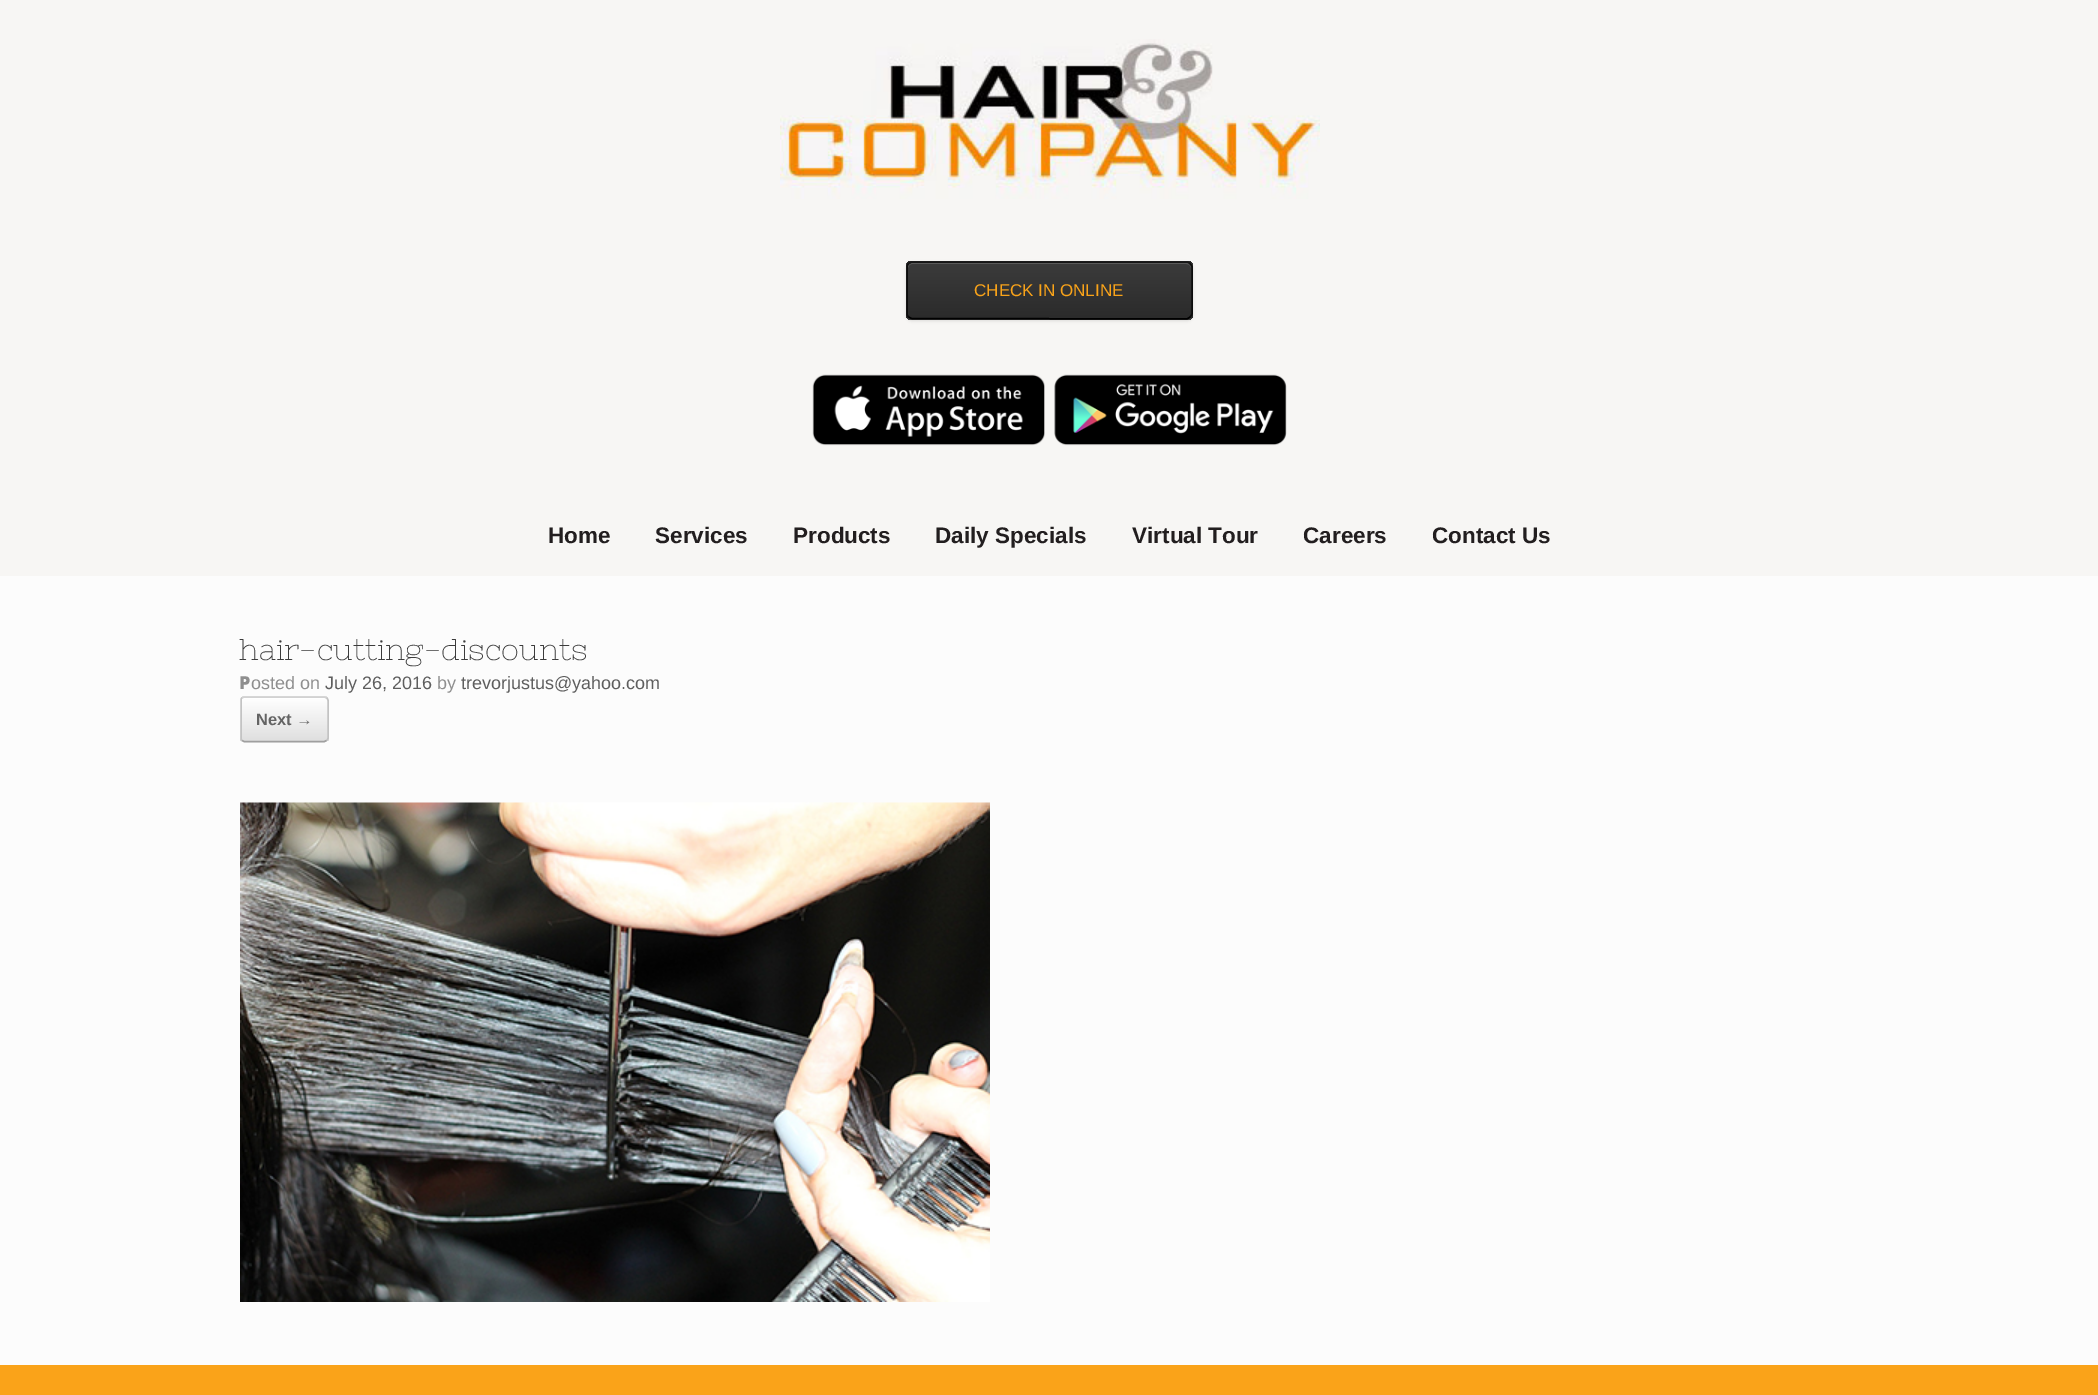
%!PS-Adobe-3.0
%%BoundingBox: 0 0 2098 1395
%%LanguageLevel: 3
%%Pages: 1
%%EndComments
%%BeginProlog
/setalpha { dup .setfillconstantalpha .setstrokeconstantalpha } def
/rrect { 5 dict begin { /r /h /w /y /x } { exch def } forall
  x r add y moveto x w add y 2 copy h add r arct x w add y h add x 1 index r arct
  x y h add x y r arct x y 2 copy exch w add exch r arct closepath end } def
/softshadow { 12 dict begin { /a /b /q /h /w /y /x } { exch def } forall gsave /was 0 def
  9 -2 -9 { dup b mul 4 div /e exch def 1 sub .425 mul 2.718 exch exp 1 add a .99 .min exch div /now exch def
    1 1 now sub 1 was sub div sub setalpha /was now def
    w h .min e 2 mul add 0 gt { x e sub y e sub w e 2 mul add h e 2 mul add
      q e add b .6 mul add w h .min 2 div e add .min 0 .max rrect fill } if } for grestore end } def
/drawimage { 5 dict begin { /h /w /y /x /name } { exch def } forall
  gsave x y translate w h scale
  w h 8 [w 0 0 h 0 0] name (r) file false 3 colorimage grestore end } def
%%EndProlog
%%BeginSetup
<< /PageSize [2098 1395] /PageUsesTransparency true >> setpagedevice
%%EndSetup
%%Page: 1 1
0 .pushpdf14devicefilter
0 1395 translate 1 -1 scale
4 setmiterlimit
0.98 0.639 0.098 setrgbcolor
0 0 2098 1395 rectfill
0.969 0.965 0.957 setrgbcolor
0 0 2098 576 rectfill
(images/1.raw) 780 39 540 160 drawimage
0 setgray
906 263 287 58 6 1.5 0.1 softshadow
gsave
906 261 287 59 6 rrect clip newpath
gsave newpath 906 261 moveto 1193 261 lineto 1193 263 lineto 906 263 lineto closepath clip newpath
<< /ShadingType 2 /ColorSpace /DeviceRGB /Coords [908 263 908 207] /Extend [true true] /Function << /FunctionType 2 /Domain [0 1] /C0 [0.169 0.169 0.169] /C1 [0.231 0.231 0.231] /N 1 >> >> shfill grestore
gsave newpath 906 263 moveto 1193 263 lineto 1193 318 lineto 906 318 lineto closepath clip newpath
<< /ShadingType 2 /ColorSpace /DeviceRGB /Coords [908 318 908 263] /Extend [true true] /Function << /FunctionType 2 /Domain [0 1] /C0 [0.169 0.169 0.169] /C1 [0.231 0.231 0.231] /N 1 >> >> shfill grestore
gsave newpath 906 318 moveto 1193 318 lineto 1193 320 lineto 906 320 lineto closepath clip newpath
<< /ShadingType 2 /ColorSpace /DeviceRGB /Coords [908 374 908 318] /Extend [true true] /Function << /FunctionType 2 /Domain [0 1] /C0 [0.169 0.169 0.169] /C1 [0.231 0.231 0.231] /N 1 >> >> shfill grestore
grestore
0.353 setgray
newpath 912 264 moveto 1186 264 lineto 1189 264 1191 266 1191 268 curveto 1191 265 1189 263 1186 263 curveto 913 263 lineto 910 263 908 265 908 268 curveto 908 266 910 264 912 264 curveto closepath fill
0.086 setgray
1.5 setlinewidth
newpath 908.5 263.5 moveto 911.5 262 lineto 1186.5 262 lineto 1188 262 1189 262.5 1190 263.5 curveto stroke
0.047 setgray
newpath 1190 263.5 moveto 1191 264.5 1192 265.5 1192 267 curveto 1192 313.5 lineto 1192 315 1191 316 1190 317 curveto stroke
0 setgray
newpath 1190 317 moveto 1189 318 1188 318.5 1186.5 319 curveto 911.5 318.5 lineto 908.5 317 lineto stroke
0.047 setgray
newpath 908.5 317 moveto 907.5 316 907 315 907 313.5 curveto 907 267 lineto 907 265.5 907.5 264.5 908.5 263.5 curveto stroke
(images/2.raw) 812 374 233 72 drawimage
(images/3.raw) 1054 374 233 72 drawimage
0.988 setgray
0 576 2098 789 rectfill
gsave
240 696 89 47 5 rrect clip newpath
gsave newpath 240 696 moveto 329 696 lineto 329 698 lineto 240 698 lineto closepath clip newpath
<< /ShadingType 2 /ColorSpace /DeviceRGB /Coords [242 698 242 654] /Extend [true true] /Function << /FunctionType 2 /Domain [0 1] /C0 [0.875 0.875 0.875] /C1 [1 1 1] /N 1 >> >> shfill grestore
gsave newpath 240 698 moveto 329 698 lineto 329 741 lineto 240 741 lineto closepath clip newpath
<< /ShadingType 2 /ColorSpace /DeviceRGB /Coords [242 741 242 698] /Extend [true true] /Function << /FunctionType 2 /Domain [0 1] /C0 [0.875 0.875 0.875] /C1 [1 1 1] /N 1 >> >> shfill grestore
gsave newpath 240 741 moveto 329 741 lineto 329 743 lineto 240 743 lineto closepath clip newpath
<< /ShadingType 2 /ColorSpace /DeviceRGB /Coords [242 785 242 741] /Extend [true true] /Function << /FunctionType 2 /Domain [0 1] /C0 [0.875 0.875 0.875] /C1 [1 1 1] /N 1 >> >> shfill grestore
grestore
0.824 setgray
newpath 242 698 moveto 244 697 lineto 324.5 697 lineto 326.5 698 lineto stroke
0.765 setgray
newpath 326.5 698 moveto 327.5 698.5 328 699.5 328 700.5 curveto 328 738 lineto 328 739 327.5 740 326.5 740.5 curveto stroke
0.624 setgray
newpath 326.5 740.5 moveto 324.5 741.5 lineto 244 741.5 lineto 242 740.5 lineto stroke
0.765 setgray
newpath 242 740.5 moveto 241 740 241 739 241 738 curveto 241 700.5 lineto 241 699.5 241 698.5 242 698 curveto stroke
(images/4.raw) 240 802 750 500 drawimage
/LiberationSans-Regular [17 0 0 -17 0 0] selectfont
0.976 0.639 0.098 setrgbcolor
974 296 moveto (CHECK IN ONLINE) show
/LiberationSans-Bold [22.5 0 0 -22.5 0 0] selectfont
0.133 0.118 0.122 setrgbcolor
548 543 moveto (Home) show
655 543 moveto (Services) show
793 543 moveto (Products) show
935 543 moveto (Daily Specials) show
1132 543 moveto (Virtual Tour) show
1303 543 moveto (Careers) show
1432 543 moveto (Contact Us) show
/NixieOne-Regular [30 0 0 -30 0 0] selectfont
0.231 setgray
239 660 moveto (hair-cutting-discounts) show
/NotoSans-Black [18 0 0 -18 0 0] selectfont
0.561 setgray
239 689 moveto (P) show
/LiberationSans-Regular [18 0 0 -18 0 0] selectfont
251 689 moveto (osted on) show
0.369 setgray
325 689 moveto (July 26, 2016) show
0.561 setgray
437 689 moveto (by) show
0.369 setgray
461 689 moveto (trevorjustus@yahoo.com) show
/LiberationSans-Bold [16.5 0 0 -16.5 0 0] selectfont
0.392 setgray
256 725 moveto (Next →) show
.poppdf14devicefilter showpage
%%EOF
